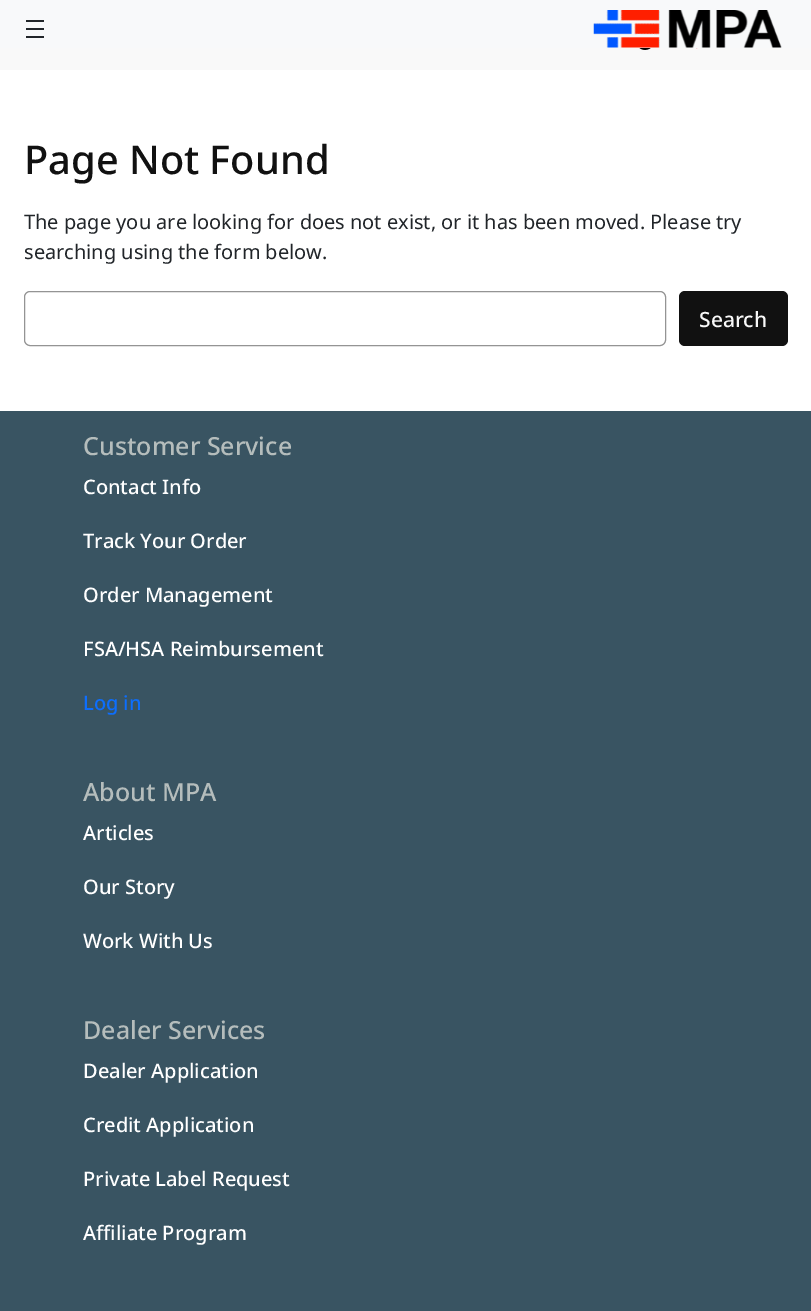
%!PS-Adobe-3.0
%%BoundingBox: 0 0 811 1311
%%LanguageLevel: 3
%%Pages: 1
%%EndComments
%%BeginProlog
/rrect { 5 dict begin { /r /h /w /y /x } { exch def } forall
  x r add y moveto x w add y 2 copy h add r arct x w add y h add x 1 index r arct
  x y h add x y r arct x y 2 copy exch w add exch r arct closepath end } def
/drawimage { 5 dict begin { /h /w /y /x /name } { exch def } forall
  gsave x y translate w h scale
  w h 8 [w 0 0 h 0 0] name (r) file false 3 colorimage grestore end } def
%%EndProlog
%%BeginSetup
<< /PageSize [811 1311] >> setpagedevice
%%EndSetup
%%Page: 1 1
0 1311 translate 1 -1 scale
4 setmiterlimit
1 setgray
0 0 811 1311 rectfill
0.973 0.976 0.98 setrgbcolor
0 0 811 48 rectfill
0.129 0.145 0.161 setrgbcolor
26 20 18 2 rectfill
26 28 18 2 rectfill
26 36 18 2 rectfill
(images/1.raw) 593 10 189 38 drawimage
0.976 setgray
0 48 811 22 rectfill
(images/2.raw) 639 48 12 2 drawimage
(images/3.raw) 696 48 2 1 drawimage
0.58 setgray
24.5 291.5 641 54 5.5 rrect stroke
0.067 setgray
679 291 109 55 6 rrect fill
0.224 0.329 0.384 setrgbcolor
0 411 811 900 rectfill
/NotoSans-Medium [39.75 0 0 -39.75 0 0] selectfont
0.067 setgray
24 174 moveto (Page Not Found) show
/NotoSans-Regular [20 0 0 -20 0 0] selectfont
0.129 0.145 0.161 setrgbcolor
24 229 moveto (The page you are looking for does not exist, or it has been moved. Please try) show
24 259 moveto (searching using the form below.) show
/NotoSans-Medium [21 0 0 -21 0 0] selectfont
0.976 setgray
699 327 moveto (Search) show
/NotoSans-Medium [25 0 0 -25 0 0] selectfont
0.71 0.741 0.737 setrgbcolor
83 455 moveto (Customer Service) show
/NotoSans-Medium [20 0 0 -20 0 0] selectfont
1 setgray
83 494 moveto (Contact Info) show
83 548 moveto (Track Your Order) show
83 602 moveto (Order Management) show
83 656 moveto (FSA/HSA Reimbursement) show
0.051 0.431 0.992 setrgbcolor
83 710 moveto (Log in) show
/NotoSans-Medium [25 0 0 -25 0 0] selectfont
0.71 0.741 0.737 setrgbcolor
83 801 moveto (About MPA) show
/NotoSans-Medium [20 0 0 -20 0 0] selectfont
1 setgray
83 840 moveto (Articles) show
83 894 moveto (Our Story) show
83 948 moveto (Work With Us) show
/NotoSans-Medium [25 0 0 -25 0 0] selectfont
0.71 0.741 0.737 setrgbcolor
83 1039 moveto (Dealer Services) show
/NotoSans-Medium [20 0 0 -20 0 0] selectfont
1 setgray
83 1078 moveto (Dealer Application) show
83 1132 moveto (Credit Application) show
83 1186 moveto (Private Label Request) show
83 1240 moveto (Affiliate Program) show
showpage
%%EOF
